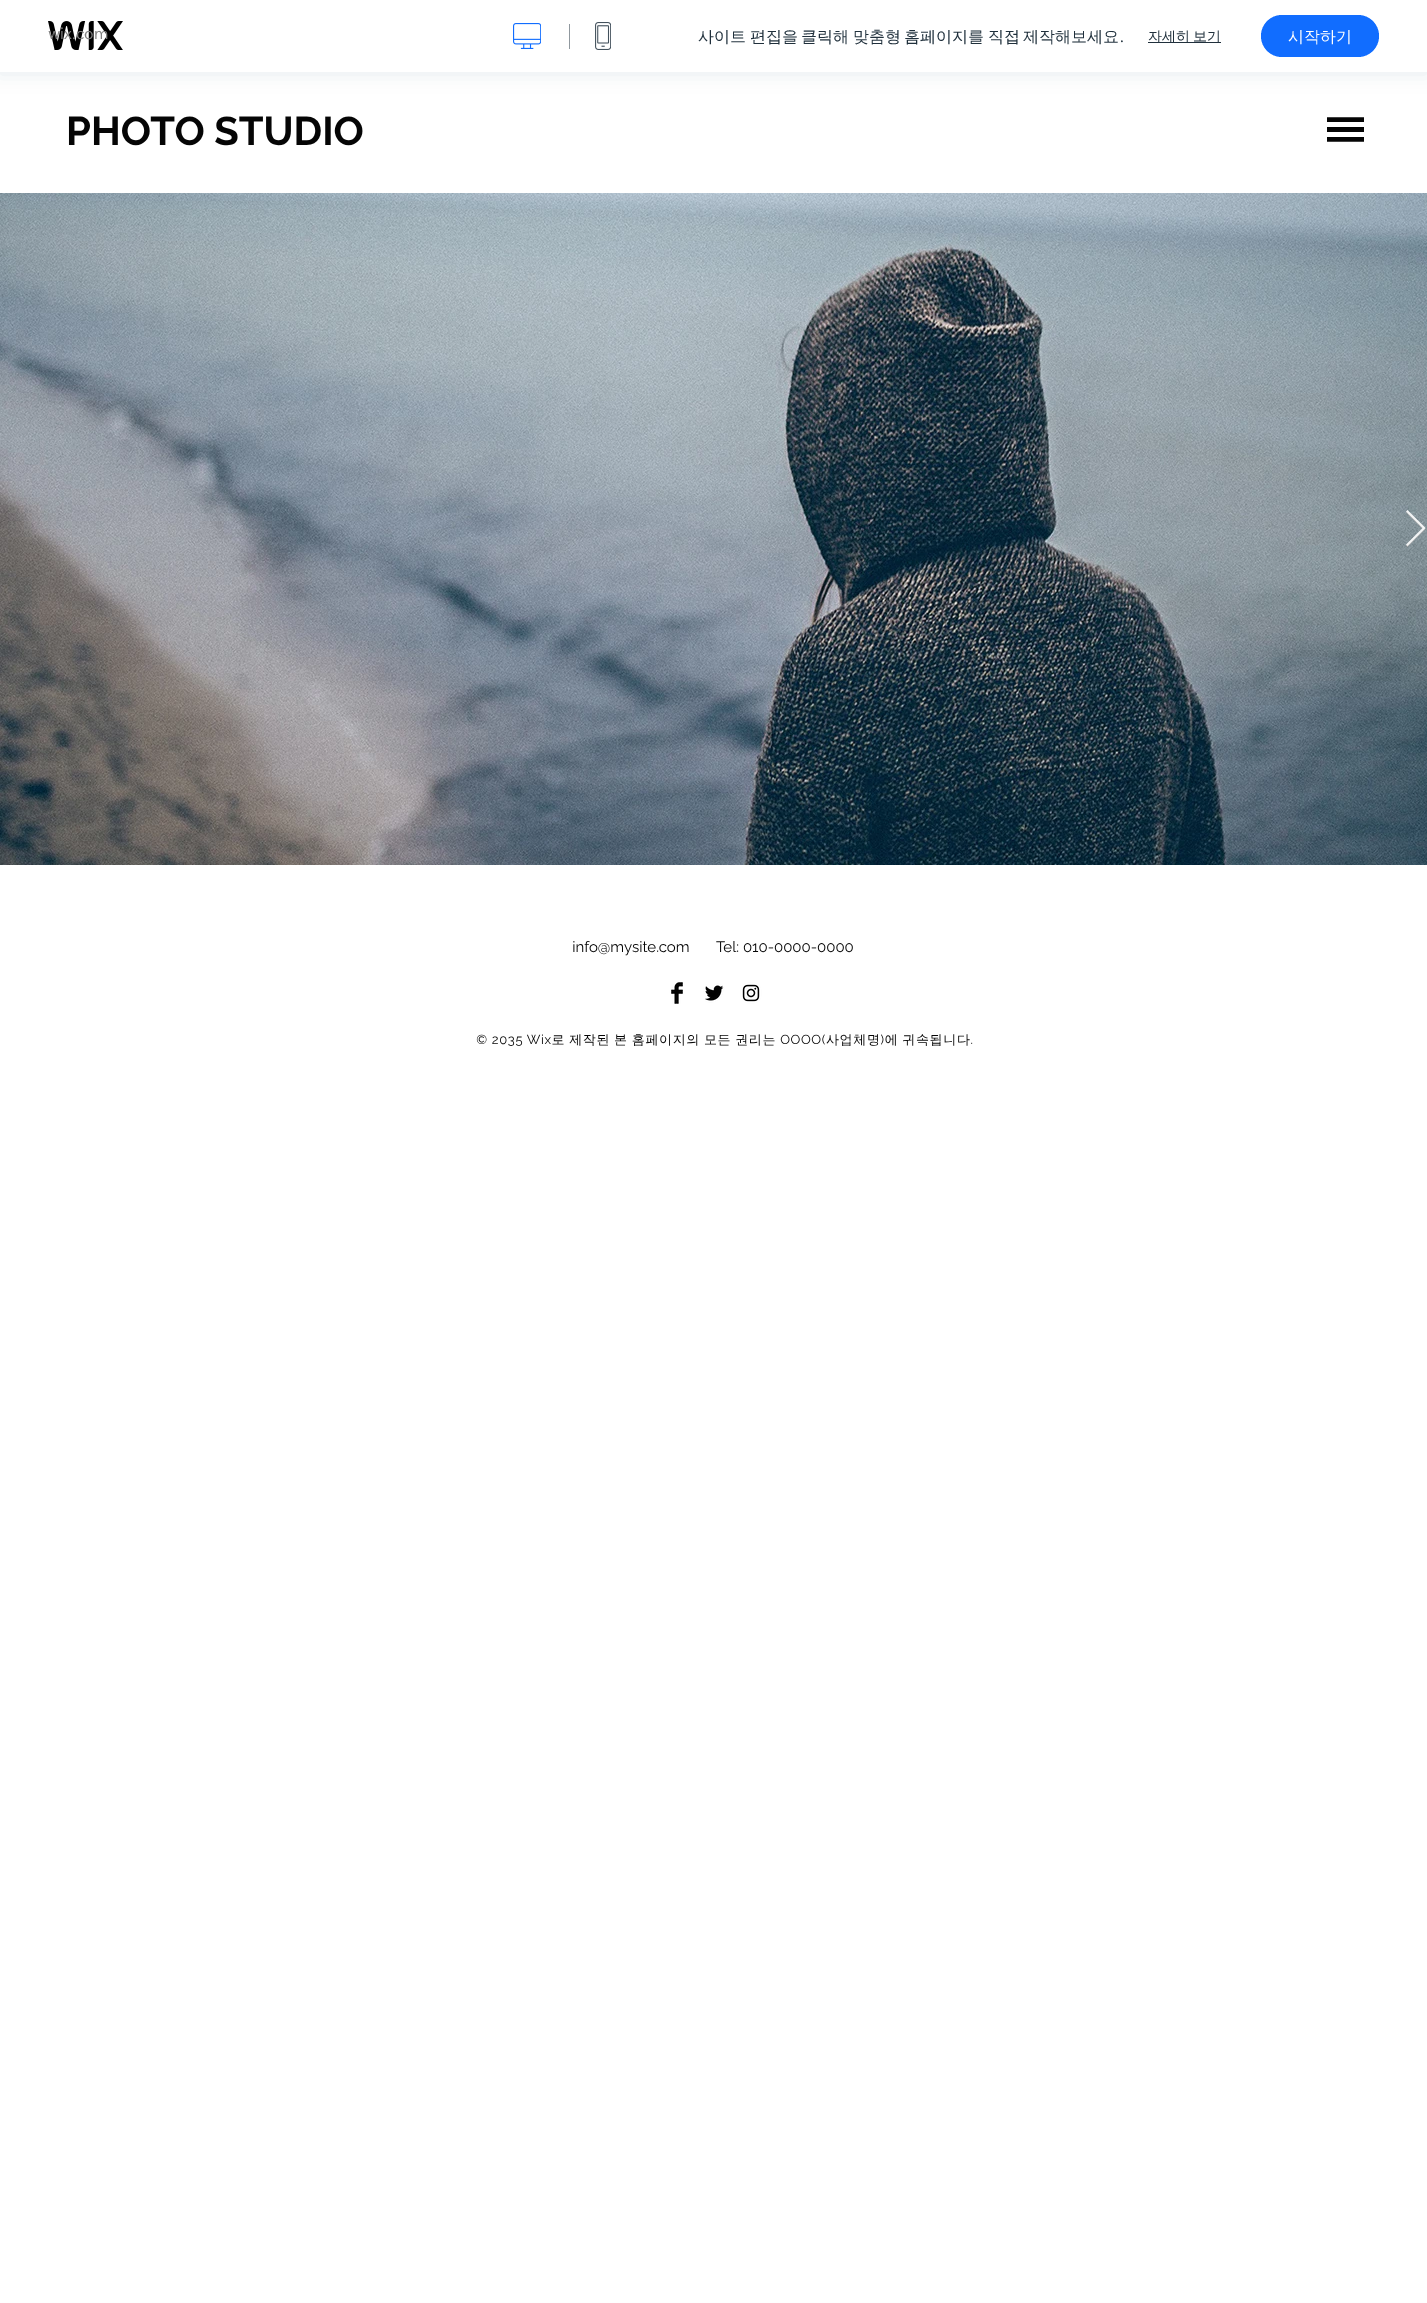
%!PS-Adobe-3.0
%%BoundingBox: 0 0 1427 2303
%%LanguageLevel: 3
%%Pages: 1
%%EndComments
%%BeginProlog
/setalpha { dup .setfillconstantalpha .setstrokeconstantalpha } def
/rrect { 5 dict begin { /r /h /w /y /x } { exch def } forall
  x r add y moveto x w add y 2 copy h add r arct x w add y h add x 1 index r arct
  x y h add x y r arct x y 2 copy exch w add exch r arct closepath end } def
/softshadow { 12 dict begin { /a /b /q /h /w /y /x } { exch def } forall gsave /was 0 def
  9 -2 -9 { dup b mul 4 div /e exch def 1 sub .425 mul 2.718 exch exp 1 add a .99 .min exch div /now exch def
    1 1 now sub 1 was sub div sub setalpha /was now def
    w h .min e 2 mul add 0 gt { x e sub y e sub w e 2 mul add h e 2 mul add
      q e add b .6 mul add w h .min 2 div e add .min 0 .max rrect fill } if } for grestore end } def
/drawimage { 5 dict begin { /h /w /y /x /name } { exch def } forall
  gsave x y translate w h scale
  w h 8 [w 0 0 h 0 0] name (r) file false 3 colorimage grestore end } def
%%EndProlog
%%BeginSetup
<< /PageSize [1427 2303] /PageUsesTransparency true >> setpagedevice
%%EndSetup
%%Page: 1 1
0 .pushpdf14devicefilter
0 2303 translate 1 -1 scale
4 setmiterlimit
1 setgray
0 0 1427 2303 rectfill
(images/4.raw) 0 72 1427 2231 drawimage
0.506 0.635 0.714 setrgbcolor
0 2 1427 72 0 9 0.2 softshadow
1 setgray
0 0 1427 72 rectfill
(images/1.raw) 48 21 75 29 drawimage
(images/2.raw) 513 23 28 26 drawimage
0.565 0.596 0.62 setrgbcolor
569 24 1 25 rectfill
(images/3.raw) 595 22 16 28 drawimage
0.125 0.188 0.235 setrgbcolor
1148 42 73 1 rectfill
0.067 0.427 1 setrgbcolor
1261 15 118 42 21 rrect fill
/WixMadeforText-Regular [16 0 0 -16 0 0] selectfont
0.502 setgray
48 39 moveto (wix.com) show
/WenQuanYiZenHei-Medium [16 0 0 -16 0 0] selectfont
0.125 0.188 0.235 setrgbcolor
698 42 moveto -1.25 0 32 (사이트 편집을 클릭해 맞춤형 홈페이지를 직접 제작해보세요) widthshow
/WixMadeforText-Regular [16 0 0 -16 0 0] selectfont
1120 42 moveto (.) show
/WenQuanYiZenHei-Medium [14 0 0 -14 0 0] selectfont
1148 41 moveto -1 0 32 (자세히 보기) widthshow
/WenQuanYiZenHei-Medium [16 0 0 -16 0 0] selectfont
1 setgray
1288 42 moveto (시작하기) show
.poppdf14devicefilter showpage
%%EOF
